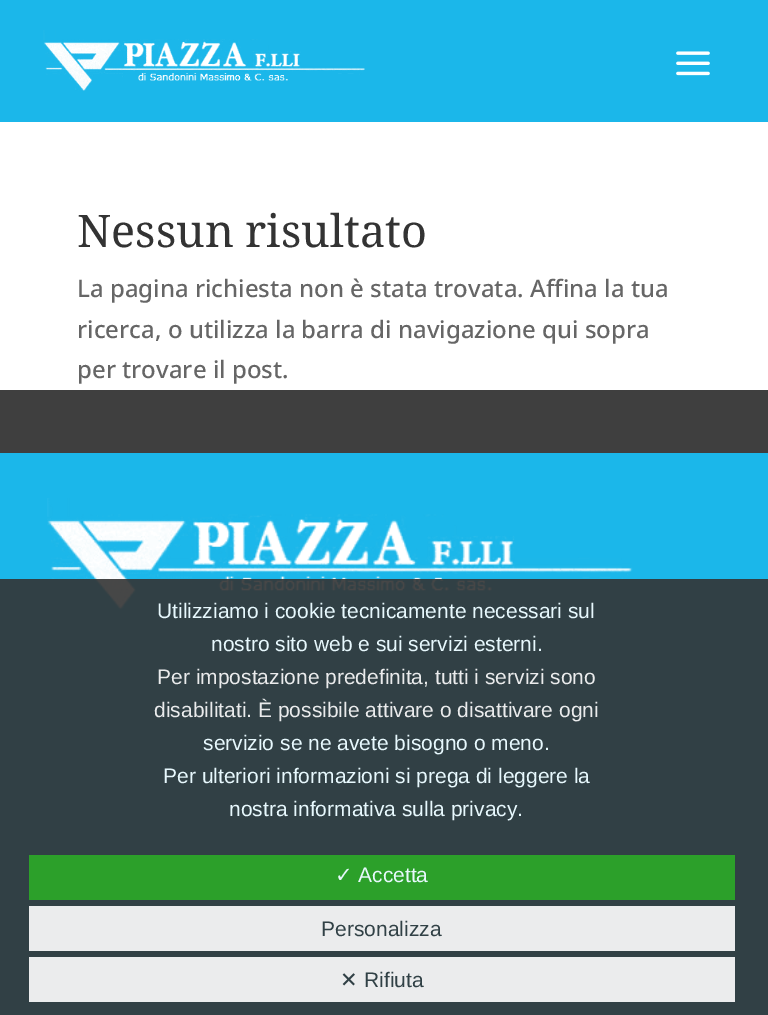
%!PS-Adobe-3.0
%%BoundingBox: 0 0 768 1015
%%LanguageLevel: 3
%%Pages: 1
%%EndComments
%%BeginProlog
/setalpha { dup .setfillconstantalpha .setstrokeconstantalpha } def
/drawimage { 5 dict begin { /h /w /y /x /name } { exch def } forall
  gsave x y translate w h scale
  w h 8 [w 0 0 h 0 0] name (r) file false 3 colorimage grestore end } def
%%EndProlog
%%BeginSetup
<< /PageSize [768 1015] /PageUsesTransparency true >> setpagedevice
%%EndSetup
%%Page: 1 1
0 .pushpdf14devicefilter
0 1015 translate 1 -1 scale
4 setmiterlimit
0.247 setgray
0 0 768 1015 rectfill
0.106 0.718 0.918 setrgbcolor
0 0 768 122 rectfill
(images/1.raw) 43 30 322 61 drawimage
(images/2.raw) 676 51 34 25 drawimage
1 setgray
0 122 768 268 rectfill
0.106 0.718 0.918 setrgbcolor
0 453 768 562 rectfill
(images/3.raw) 47 498 586 112 drawimage
0.9 setalpha
0.2 setgray
0 579 768 436 rectfill
0.173 0.667 0.153 setrgbcolor
29 855 706 45 rectfill
1 setgray
29 906 706 45 rectfill
29 957 706 45 rectfill
/NotoSerif-Regular [45 0 0 -45 0 0] selectfont
1 setalpha
0.2 setgray
77 247 moveto (Nessun risultato) show
/NotoSans-Medium [24 0 0 -24 0 0] selectfont
0.4 setgray
77 297 moveto (La pagina richiesta non è stata trovata. Affina la tua) show
77 338 moveto (ricerca, o utilizza la barra di navigazione qui sopra) show
77 378 moveto (per trovare il post.) show
/LiberationSans-Regular [21 0 0 -21 0 0] selectfont
0.906 0.973 0.992 setrgbcolor
157 618 moveto (Utilizziamo i cookie tecnicamente necessari sul) show
211 651 moveto (nostro sito web e sui servizi esterni.) show
0.918 0.922 0.925 setrgbcolor
157 684 moveto (Per impostazione predefinita, tutti i servizi sono) show
154 717 moveto (disabilitati. È possibile attivare o disattivare ogni) show
0.906 0.973 0.992 setrgbcolor
203 750 moveto (servizio se ne avete bisogno o meno.) show
163 783 moveto (Per ulteriori informazioni si prega di leggere la) show
229 816 moveto (nostra informativa sulla privacy.) show
/DejaVuSans-Regular [21 0 0 -21 0 0] selectfont
335 882 moveto (✓) show
/LiberationSans-Regular [21 0 0 -21 0 0] selectfont
358 882 moveto (Accetta) show
0.192 0.255 0.275 setrgbcolor
321 936 moveto (Personalizza) show
/DejaVuSans-Regular [21 0 0 -21 0 0] selectfont
340 987 moveto (✕) show
/LiberationSans-Regular [21 0 0 -21 0 0] selectfont
364 987 moveto (Rifiuta) show
.poppdf14devicefilter showpage
%%EOF
